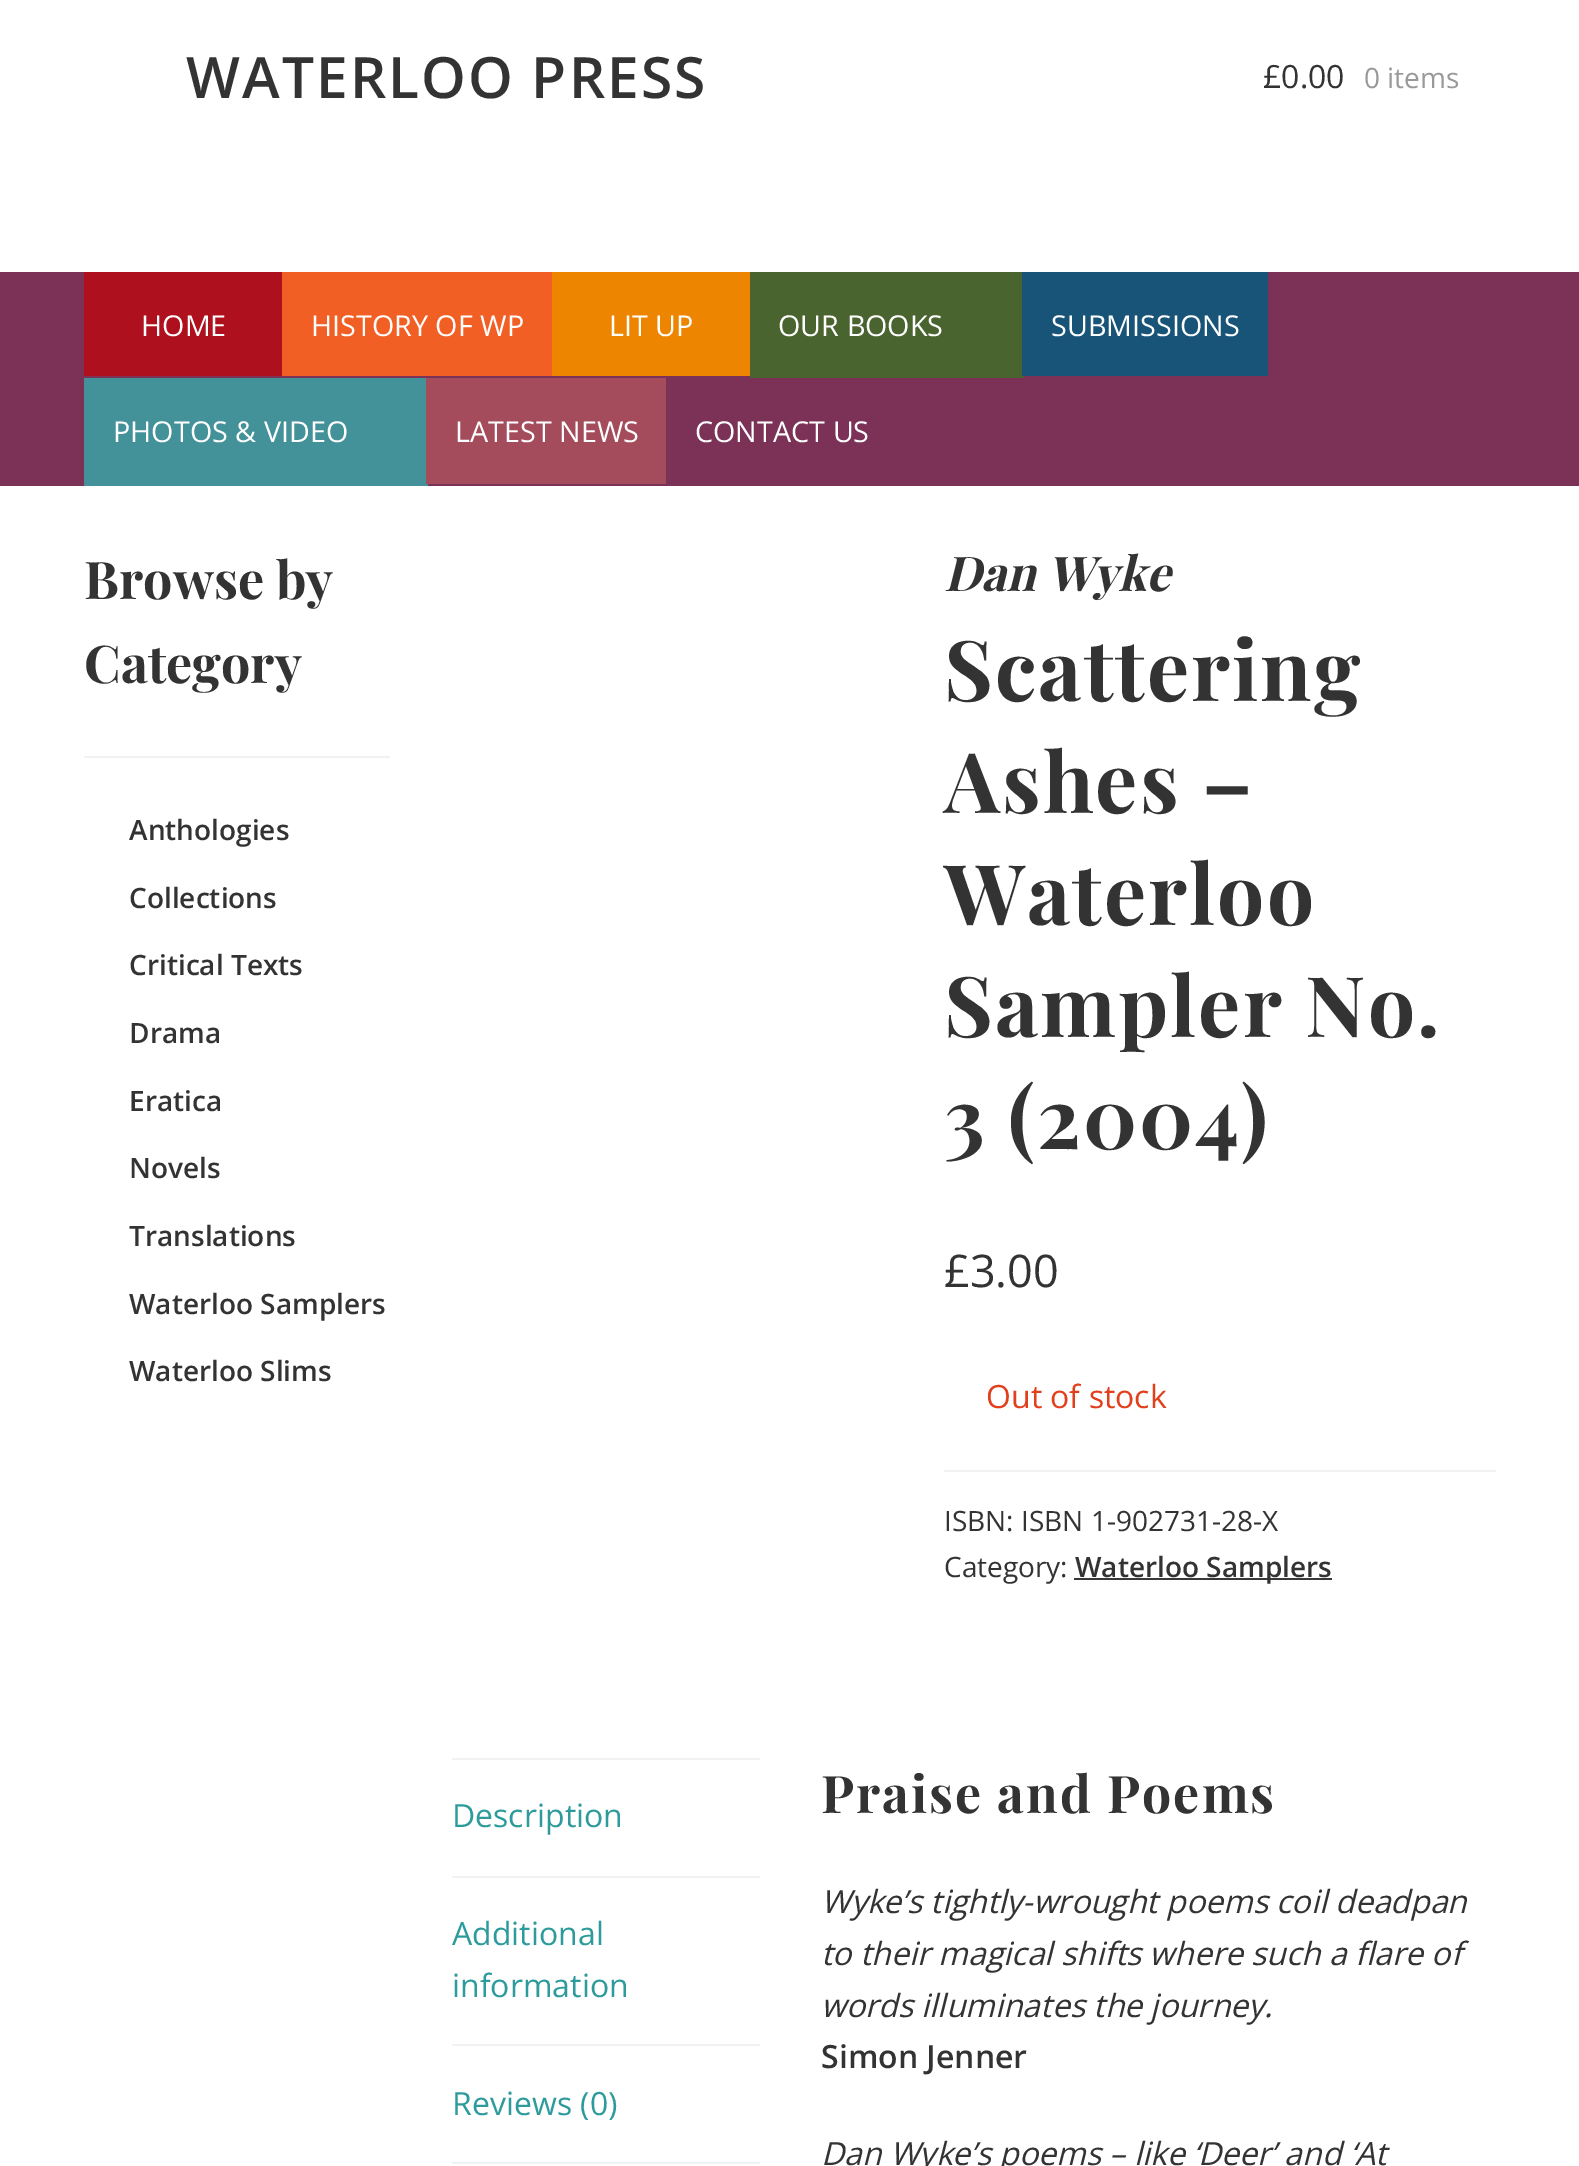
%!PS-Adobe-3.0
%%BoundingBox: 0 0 1579 2166
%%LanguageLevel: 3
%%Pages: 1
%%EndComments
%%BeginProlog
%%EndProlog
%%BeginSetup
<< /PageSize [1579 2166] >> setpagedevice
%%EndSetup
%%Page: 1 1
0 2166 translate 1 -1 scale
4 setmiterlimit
1 setgray
0 0 1579 2166 rectfill
0.486 0.192 0.341 setrgbcolor
0 272 1579 214 rectfill
0.682 0.067 0.114 setrgbcolor
84 272 198 104 rectfill
0.949 0.373 0.141 setrgbcolor
282 272 270 104 rectfill
0.933 0.522 0 setrgbcolor
552 272 198 104 rectfill
0.29 0.392 0.188 setrgbcolor
750 272 274 106 rectfill
0.094 0.325 0.471 setrgbcolor
1022 272 246 104 rectfill
0.267 0.573 0.6 setrgbcolor
84 378 344 108 rectfill
0.643 0.294 0.361 setrgbcolor
426 378 240 106 rectfill
0.949 setgray
84 756 306 2 rectfill
944 1470 552 2 rectfill
0.22 setgray
1074 1578 258 2 rectfill
0.949 setgray
452 1758 308 2 rectfill
452 1876 308 2 rectfill
452 2044 308 2 rectfill
452 2162 308 2 rectfill
/OpenSans-SemiBold [57 0 0 -57 0 0] selectfont
0.2 setgray
186 98 moveto 2 0 (WATERLOO PRESS) ashow
/OpenSans-Regular [32 0 0 -32 0 0] selectfont
1263 88 moveto (£0.00) show
/OpenSans-Regular [28 0 0 -28 0 0] selectfont
0.6 setgray
1364 88 moveto (0 items) show
/OpenSans-Regular [28.75 0 0 -28.75 0 0] selectfont
1 setgray
141 336 moveto (HOME) show
311 336 moveto (HISTORY OF WP) show
609 336 moveto (LIT UP) show
778 336 moveto (OUR BOOKS) show
1051 336 moveto (SUBMISSIONS) show
113 442 moveto (PHOTOS & VIDEO) show
455 442 moveto (LATEST NEWS) show
695 442 moveto (CONTACT US) show
/PlayfairDisplay-Bold [52 0 0 -52 0 0] selectfont
0.2 setgray
84 599 moveto (Browse by) show
84 683 moveto (Category) show
/OpenSans-SemiBold [28 0 0 -28 0 0] selectfont
129 840 moveto (Anthologies) show
129 908 moveto (Collections) show
129 975 moveto (Critical Texts) show
129 1043 moveto (Drama) show
129 1111 moveto (Eratica) show
129 1178 moveto (Novels) show
129 1246 moveto (Translations) show
129 1314 moveto (Waterloo Samplers) show
129 1381 moveto (Waterloo Slims) show
/PlayfairDisplay-BoldItalic [48 0 0 -48 0 0] selectfont
944 591 moveto (Dan Wyke) show
/PlayfairDisplay-Bold [83.75 0 0 -83.75 0 0] selectfont
944 701 moveto 2 0 (Scattering) ashow
944 813 moveto 2 0 (Ashes –) ashow
944 925 moveto 2 0 (Waterloo) ashow
944 1037 moveto 2 0 (Sampler No.) ashow
944 1149 moveto 2 0 (3 \(2004\)) ashow
/OpenSans-Regular [45 0 0 -45 0 0] selectfont
944 1287 moveto (£3.00) show
/OpenSans-Regular [32 0 0 -32 0 0] selectfont
0.886 0.251 0.11 setrgbcolor
986 1408 moveto (Out of stock) show
/OpenSans-Regular [28 0 0 -28 0 0] selectfont
0.2 setgray
944 1531 moveto (ISBN: ISBN 1-902731-28-X) show
944 1577 moveto (Category:) show
/OpenSans-SemiBold [28 0 0 -28 0 0] selectfont
1075 1577 moveto (Waterloo Samplers) show
/OpenSans-Regular [32 0 0 -32 0 0] selectfont
0.176 0.608 0.608 setrgbcolor
452 1827 moveto (Description) show
452 1945 moveto (Additional) show
452 1997 moveto (information) show
452 2115 moveto (Reviews \(0\)) show
/PlayfairDisplay-Bold [51.75 0 0 -51.75 0 0] selectfont
0.2 setgray
821 1813 moveto 2 0 (Praise and Poems) ashow
/OpenSans-Italic [32 0 0 -32 0 0] selectfont
821 1913 moveto (Wyke’s tightly-wrought poems coil deadpan) show
821 1965 moveto (to their magical shifts where such a flare of) show
821 2017 moveto (words illuminates the journey.) show
/OpenSans-SemiBold [32 0 0 -32 0 0] selectfont
821 2068 moveto (Simon Jenner) show
/OpenSans-Italic [32 0 0 -32 0 0] selectfont
821 2165 moveto (Dan Wyke’s poems – like ‘Deer’ and ‘At) show
showpage
%%EOF
